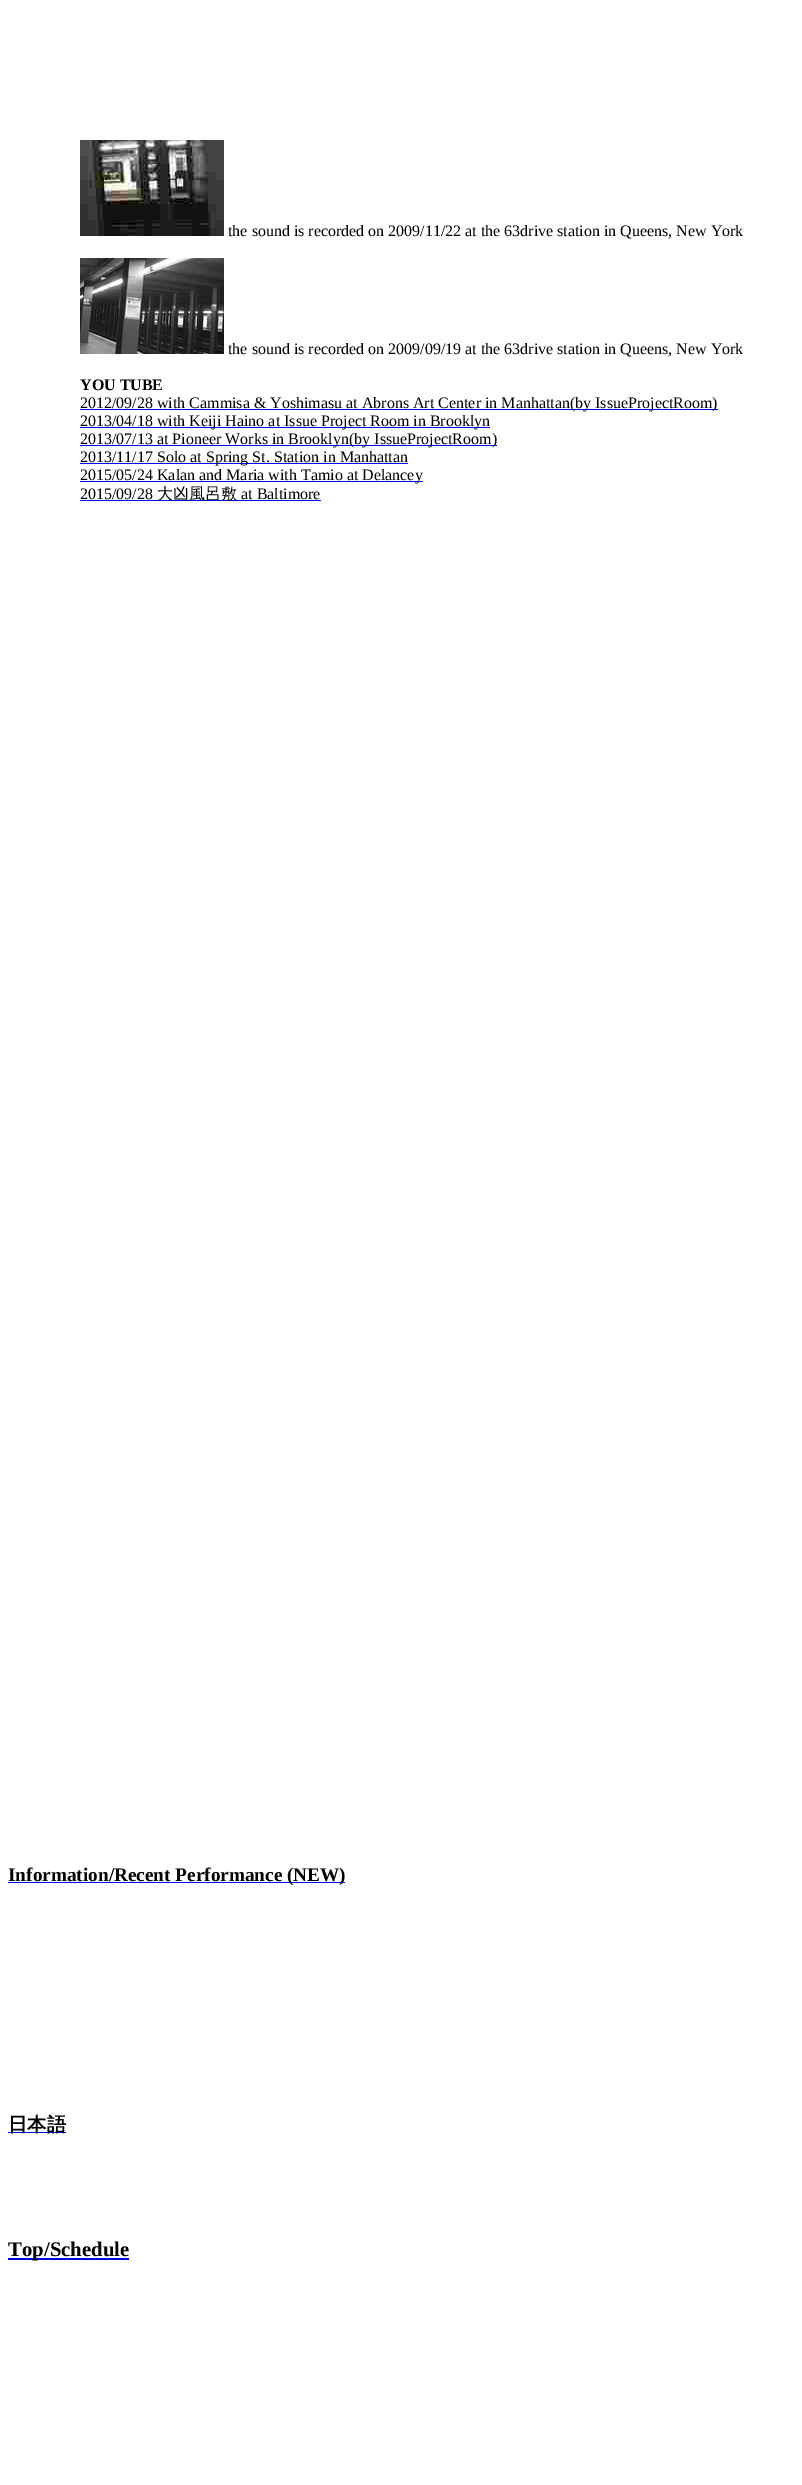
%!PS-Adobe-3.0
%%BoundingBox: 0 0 802 2485
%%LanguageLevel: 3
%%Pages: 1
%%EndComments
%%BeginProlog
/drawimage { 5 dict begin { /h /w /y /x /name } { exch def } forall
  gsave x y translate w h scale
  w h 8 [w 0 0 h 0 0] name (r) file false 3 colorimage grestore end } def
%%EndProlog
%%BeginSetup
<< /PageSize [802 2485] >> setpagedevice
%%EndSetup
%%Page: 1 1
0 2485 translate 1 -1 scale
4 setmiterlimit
1 setgray
0 0 802 2485 rectfill
(images/1.raw) 80 140 144 96 drawimage
(images/2.raw) 80 258 144 96 drawimage
0 0 0.933 setrgbcolor
80 409 638 1 rectfill
80 427 410 1 rectfill
80 445 417 1 rectfill
80 463 328 1 rectfill
80 481 343 1 rectfill
80 500 241 1 rectfill
8 1882 337 1 rectfill
8 2132 58 1 rectfill
8 2258 121 2 rectfill
/LiberationSerif-Regular [16 0 0 -16 0 0] selectfont
0 setgray
228 236 moveto (the sound is recorded on 2009/11/22 at the 63drive station in Queens, New York) show
228 354 moveto (the sound is recorded on 2009/09/19 at the 63drive station in Queens, New York) show
/LiberationSerif-Bold [16 0 0 -16 0 0] selectfont
80 390 moveto (YOU TUBE) show
/LiberationSerif-Regular [16 0 0 -16 0 0] selectfont
80 408 moveto (2012/09/28 with Cammisa & Yoshimasu at Abrons Art Center in Manhattan\(by IssueProjectRoom\)) show
80 426 moveto (2013/04/18 with Keiji Haino at Issue Project Room in Brooklyn) show
80 444 moveto (2013/07/13 at Pioneer Works in Brooklyn\(by IssueProjectRoom\)) show
80 462 moveto (2013/11/17 Solo at Spring St. Station in Manhattan) show
80 480 moveto (2015/05/24 Kalan and Maria with Tamio at Delancey) show
80 499 moveto (2015/09/28) show
/WenQuanYiZenHei-Medium [16 0 0 -16 0 0] selectfont
157 499 moveto (大凶風呂敷) show
/LiberationSerif-Regular [16 0 0 -16 0 0] selectfont
241 499 moveto (at Baltimore) show
/LiberationSerif-Bold [19.25 0 0 -19.25 0 0] selectfont
8 1881 moveto (Information/Recent Performance \(NEW\)) show
/WenQuanYiZenHei-Bold [19.25 0 0 -19.25 0 0] selectfont
8 2131 moveto (日本語) show
/LiberationSerif-Bold [20.75 0 0 -20.75 0 0] selectfont
8 2256 moveto (Top/Schedule) show
showpage
%%EOF
